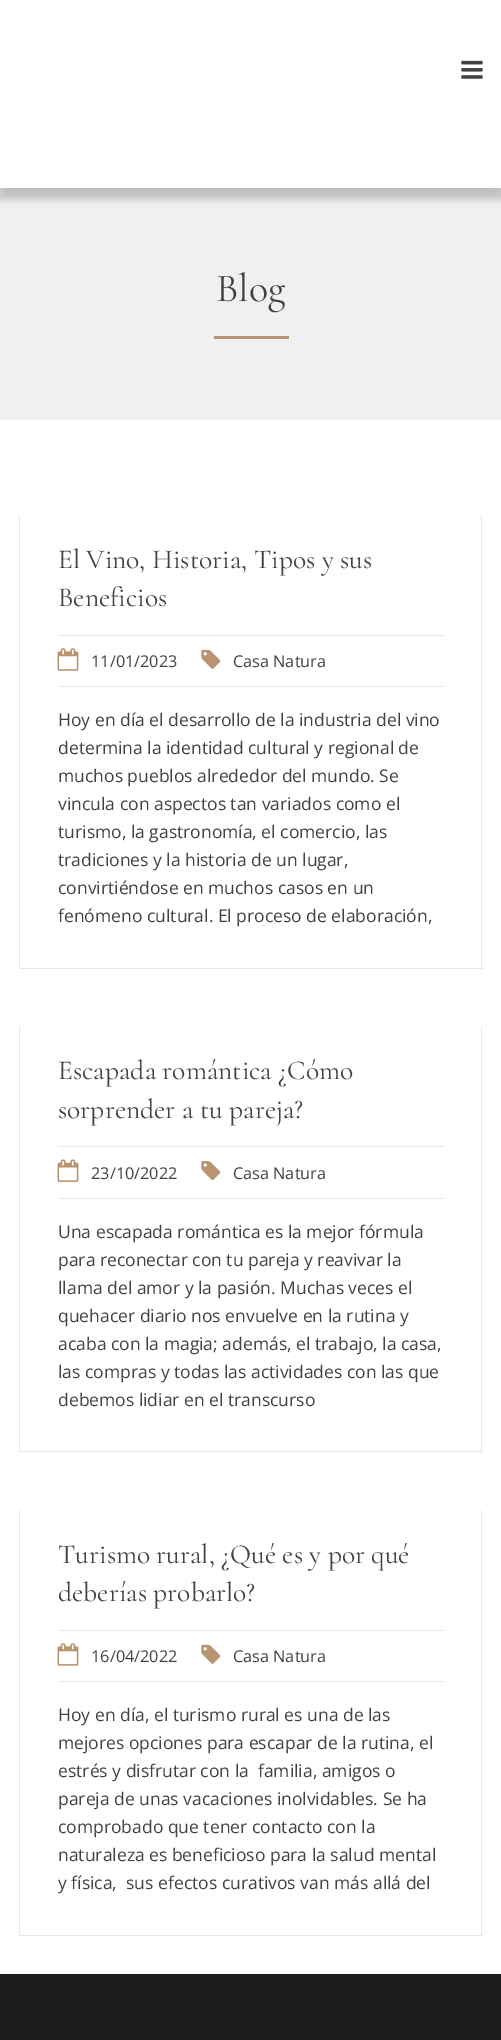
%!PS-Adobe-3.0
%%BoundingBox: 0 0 501 2040
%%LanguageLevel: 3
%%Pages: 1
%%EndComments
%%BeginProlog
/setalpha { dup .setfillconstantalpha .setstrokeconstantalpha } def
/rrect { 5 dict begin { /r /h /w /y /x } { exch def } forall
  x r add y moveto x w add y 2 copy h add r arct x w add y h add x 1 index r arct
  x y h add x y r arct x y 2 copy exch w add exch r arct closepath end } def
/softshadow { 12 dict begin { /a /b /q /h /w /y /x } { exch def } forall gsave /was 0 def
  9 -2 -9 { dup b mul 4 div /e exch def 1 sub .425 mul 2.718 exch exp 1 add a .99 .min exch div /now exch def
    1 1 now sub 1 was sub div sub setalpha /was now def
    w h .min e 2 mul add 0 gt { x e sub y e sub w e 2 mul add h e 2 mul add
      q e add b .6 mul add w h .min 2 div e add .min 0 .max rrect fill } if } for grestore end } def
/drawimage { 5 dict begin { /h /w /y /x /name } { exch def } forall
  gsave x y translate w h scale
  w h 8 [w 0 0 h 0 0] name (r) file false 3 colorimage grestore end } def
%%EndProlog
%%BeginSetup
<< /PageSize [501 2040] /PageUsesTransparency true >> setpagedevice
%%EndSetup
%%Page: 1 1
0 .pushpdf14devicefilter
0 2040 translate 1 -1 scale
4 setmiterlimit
1 setgray
0 0 501 2040 rectfill
0.941 setgray
0 188 501 232 rectfill
gsave
newpath 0 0 moveto 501 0 lineto 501 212 lineto 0 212 lineto closepath 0 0 moveto 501 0 lineto 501 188 lineto 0 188 lineto closepath eoclip newpath
0 setgray
-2 6 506 193 0 4 0.2 softshadow
grestore
(images/1.raw) 461 60 22 19 drawimage
0.725 0.58 0.439 setrgbcolor
214 336 75 3 rectfill
0.91 setgray
481 515 1 454 rectfill
19 968 464 1 rectfill
19 515 1 454 rectfill
58 635 386 1 rectfill
58 686 386 1 rectfill
(images/2.raw) 57 648 22 23 drawimage
(images/3.raw) 201 649 20 20 drawimage
481 1026 1 427 rectfill
19 1451 464 1 rectfill
19 1026 1 427 rectfill
58 1146 386 1 rectfill
58 1198 386 1 rectfill
(images/4.raw) 57 1159 22 23 drawimage
(images/5.raw) 201 1161 20 20 drawimage
481 1510 1 426 rectfill
19 1935 464 1 rectfill
19 1510 1 426 rectfill
58 1630 386 1 rectfill
58 1681 386 1 rectfill
(images/2.raw) 57 1643 22 23 drawimage
(images/3.raw) 201 1644 20 20 drawimage
0.11 setgray
0 1974 501 66 rectfill
/Cormorant-Regular [40 0 0 -40 0 0] selectfont
0.259 setgray
216 301 moveto (Blog) show
/Cormorant-Regular [27.5 0 0 -27.5 0 0] selectfont
58 568 moveto (El Vino, Historia, Tipos y sus) show
58 606 moveto (Beneficios) show
/OpenSans-Regular [16.25 0 0 -16.25 0 0] selectfont
91 667 moveto (11/01/2023) show
233 667 moveto (Casa Natura) show
/OpenSans-Regular [17.5 0 0 -17.5 0 0] selectfont
58 726 moveto (Hoy en día el desarrollo de la industria del vino) show
58 754 moveto (determina la identidad cultural y regional de) show
58 782 moveto (muchos pueblos alrededor del mundo. Se) show
58 810 moveto (vincula con aspectos tan variados como el) show
58 838 moveto (turismo, la gastronomía, el comercio, las) show
58 866 moveto (tradiciones y la historia de un lugar,) show
58 894 moveto (convirtiéndose en muchos casos en un) show
58 922 moveto (fenómeno cultural. El proceso de elaboración,) show
/Cormorant-Regular [27.5 0 0 -27.5 0 0] selectfont
58 1079 moveto (Escapada romántica ¿Cómo) show
58 1118 moveto (sorprender a tu pareja?) show
/OpenSans-Regular [16.25 0 0 -16.25 0 0] selectfont
91 1179 moveto (23/10/2022) show
233 1179 moveto (Casa Natura) show
/OpenSans-Regular [17.5 0 0 -17.5 0 0] selectfont
58 1238 moveto (Una escapada romántica es la mejor fórmula) show
58 1266 moveto (para reconectar con tu pareja y reavivar la) show
58 1294 moveto (llama del amor y la pasión. Muchas veces el) show
58 1322 moveto (quehacer diario nos envuelve en la rutina y) show
58 1350 moveto (acaba con la magia; además, el trabajo, la casa,) show
58 1378 moveto (las compras y todas las actividades con las que) show
58 1406 moveto (debemos lidiar en el transcurso) show
/Cormorant-Regular [27.5 0 0 -27.5 0 0] selectfont
58 1563 moveto (Turismo rural, ¿Qué es y por qué) show
58 1601 moveto (deberías probarlo?) show
/OpenSans-Regular [16.25 0 0 -16.25 0 0] selectfont
91 1662 moveto (16/04/2022) show
233 1662 moveto (Casa Natura) show
/OpenSans-Regular [17.5 0 0 -17.5 0 0] selectfont
58 1721 moveto (Hoy en día, el turismo rural es una de las) show
58 1749 moveto (mejores opciones para escapar de la rutina, el) show
58 1777 moveto (estrés y disfrutar con la  familia, amigos o) show
58 1805 moveto (pareja de unas vacaciones inolvidables. Se ha) show
58 1833 moveto (comprobado que tener contacto con la) show
58 1861 moveto (naturaleza es beneficioso para la salud mental) show
58 1889 moveto (y física,  sus efectos curativos van más allá del) show
.poppdf14devicefilter showpage
%%EOF
